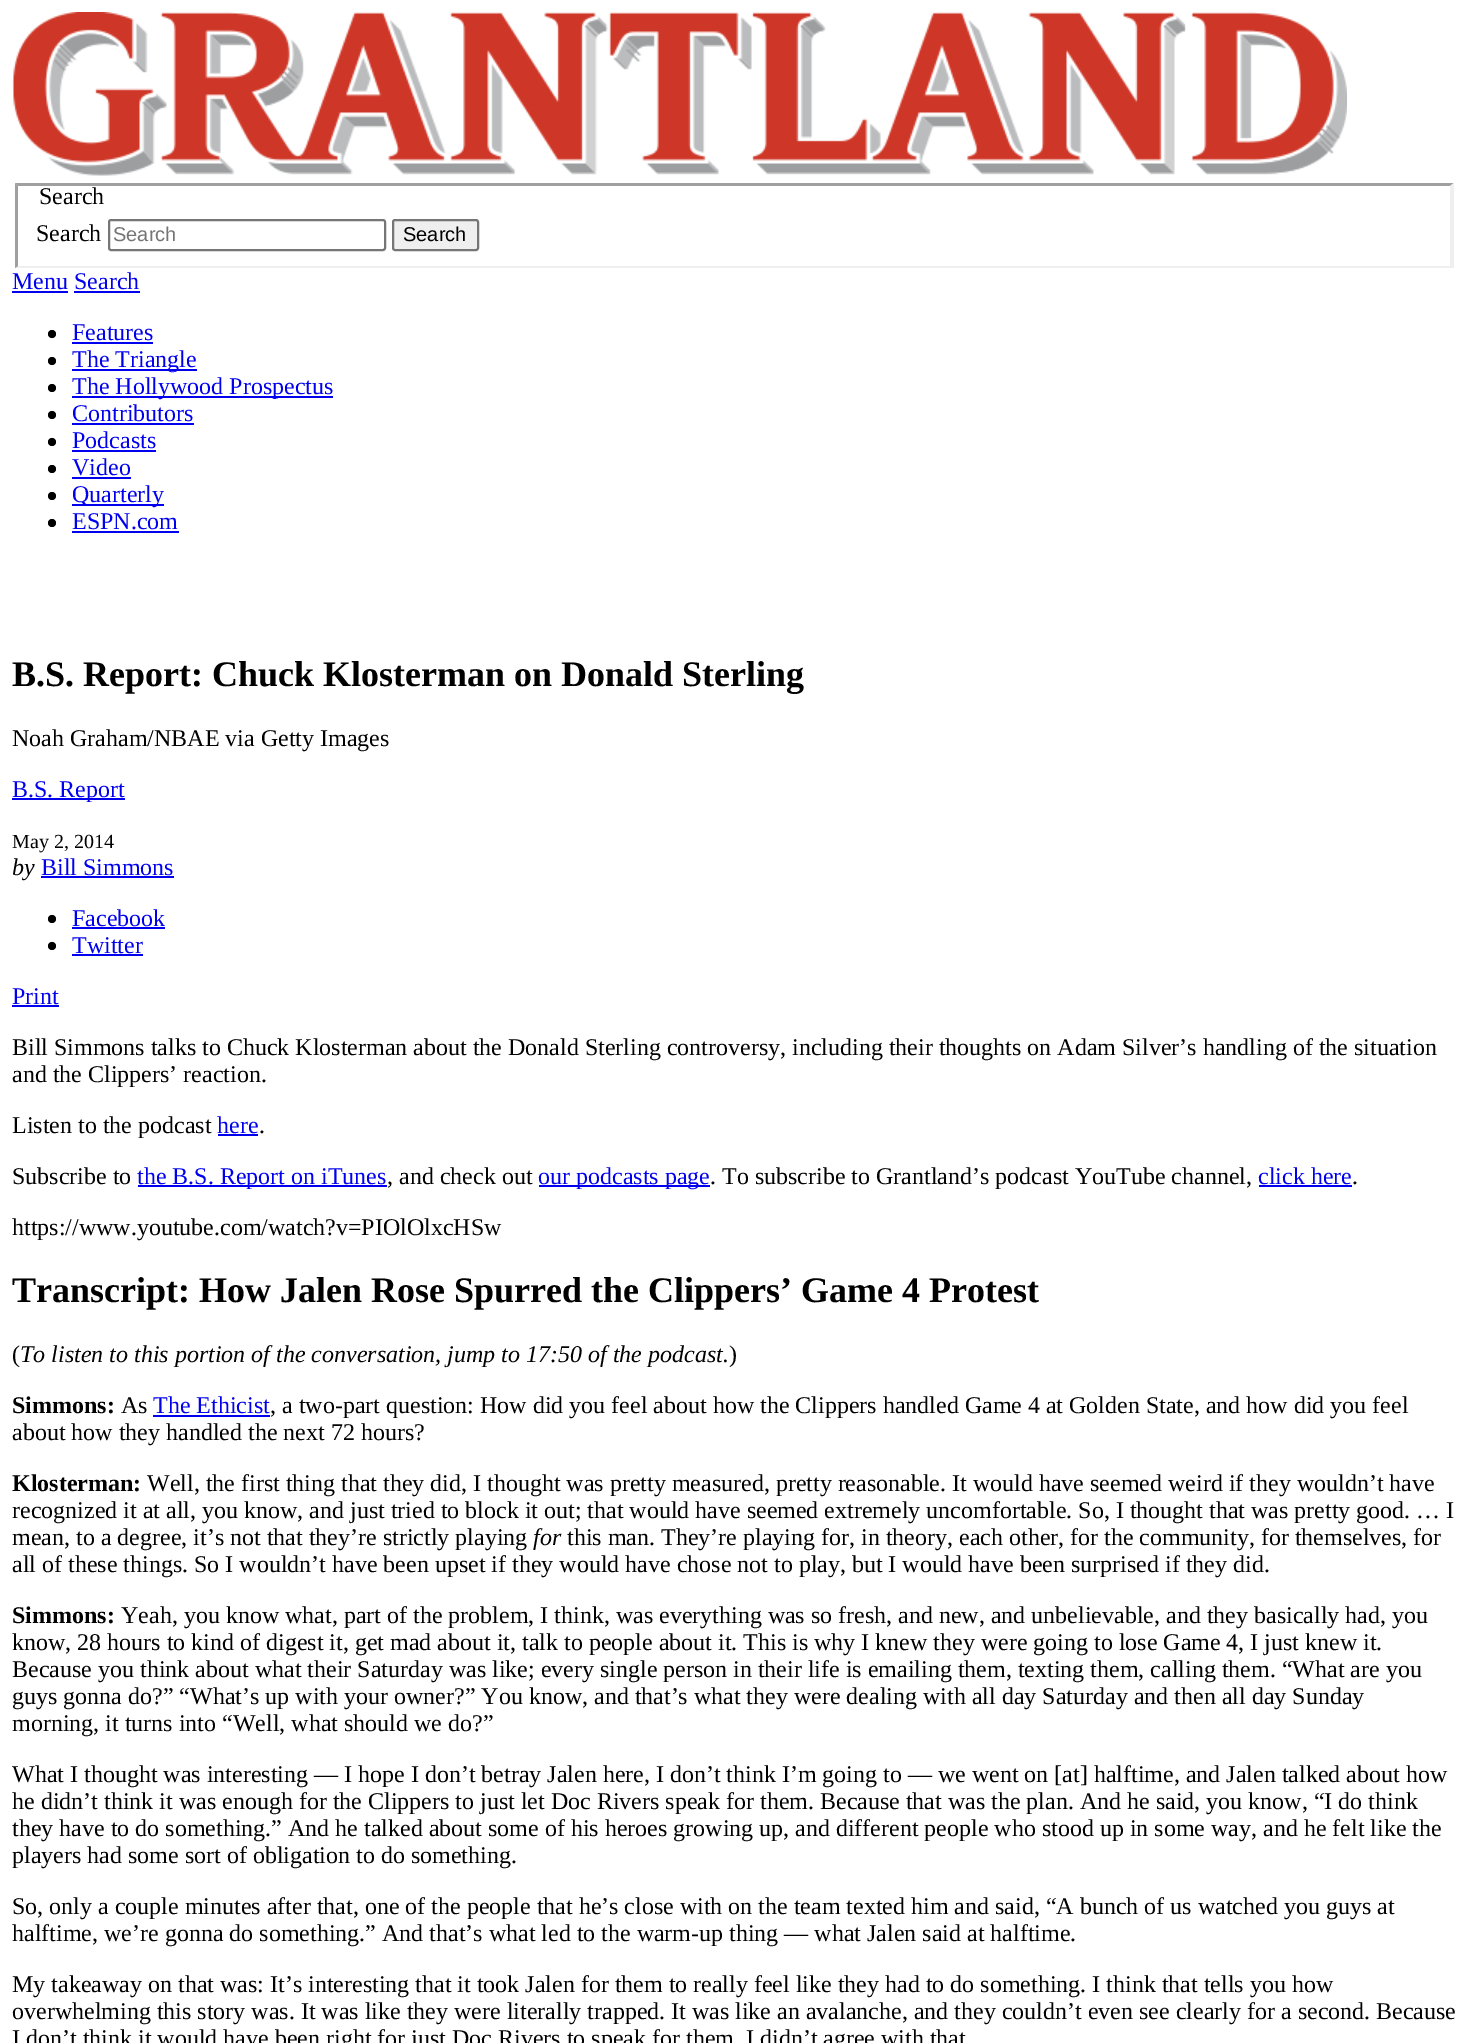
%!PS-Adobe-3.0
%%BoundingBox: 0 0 1468 2043
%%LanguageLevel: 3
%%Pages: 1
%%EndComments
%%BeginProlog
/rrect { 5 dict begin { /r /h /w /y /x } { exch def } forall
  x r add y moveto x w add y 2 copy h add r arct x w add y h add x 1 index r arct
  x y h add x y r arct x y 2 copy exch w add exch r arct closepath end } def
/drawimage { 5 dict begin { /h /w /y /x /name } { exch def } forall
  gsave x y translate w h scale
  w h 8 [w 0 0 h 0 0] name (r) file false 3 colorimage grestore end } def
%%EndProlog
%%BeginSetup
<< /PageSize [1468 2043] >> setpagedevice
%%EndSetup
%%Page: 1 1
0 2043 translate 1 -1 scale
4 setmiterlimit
1 setgray
0 0 1468 2043 rectfill
(images/1.raw) 12 12 1335 164 drawimage
0.624 setgray
newpath 15 183 moveto 1454 183 lineto 1450 186 lineto 18 186 lineto closepath fill
0.937 setgray
newpath 1454 183 moveto 1454 268 lineto 1450 266 lineto 1450 186 lineto closepath fill
newpath 1454 268 moveto 15 268 lineto 18 266 lineto 1450 266 lineto closepath fill
0.624 setgray
newpath 15 268 moveto 15 183 lineto 18 186 lineto 18 266 lineto closepath fill
0.463 setgray
2 setlinewidth
109 220 276 30 2 rrect stroke
0.937 setgray
393 220 85 30 2 rrect gsave fill grestore
0.463 setgray
stroke
0 0 0.933 setrgbcolor
12 291 56 2 rectfill
74 291 66 2 rectfill
0 setgray
newpath 52 334 4 0 360 arc closepath fill
0 0 0.933 setrgbcolor
72 342 81 2 rectfill
0 setgray
newpath 52 361 4 0 360 arc closepath fill
0 0 0.933 setrgbcolor
72 369 125 2 rectfill
0 setgray
newpath 52 388 4 0 360 arc closepath fill
0 0 0.933 setrgbcolor
72 396 261 2 rectfill
0 setgray
newpath 52 415 4 0 360 arc closepath fill
0 0 0.933 setrgbcolor
72 423 122 2 rectfill
0 setgray
newpath 52 442 4 0 360 arc closepath fill
0 0 0.933 setrgbcolor
72 450 84 2 rectfill
0 setgray
newpath 52 469 4 0 360 arc closepath fill
0 0 0.933 setrgbcolor
72 477 59 2 rectfill
0 setgray
newpath 52 496 4 0 360 arc closepath fill
0 0 0.933 setrgbcolor
72 504 92 2 rectfill
0 setgray
newpath 52 523 4 0 360 arc closepath fill
0 0 0.933 setrgbcolor
72 531 107 2 rectfill
12 798 113 2 rectfill
41 876 133 2 rectfill
0 setgray
newpath 52 919 4 0 360 arc closepath fill
0 0 0.933 setrgbcolor
72 927 93 2 rectfill
0 setgray
newpath 52 946 4 0 360 arc closepath fill
0 0 0.933 setrgbcolor
72 954 71 2 rectfill
12 1005 47 2 rectfill
218 1134 40 2 rectfill
138 1185 249 2 rectfill
539 1185 171 2 rectfill
1259 1185 93 2 rectfill
153 1415 117 2 rectfill
/LiberationSerif-Regular [24 0 0 -24 0 0] selectfont
0 setgray
39 204 moveto (Search) show
36 241 moveto (Search) show
/LiberationSans-Regular [20 0 0 -20 0 0] selectfont
0.459 setgray
113 241 moveto (Search) show
0 setgray
403 241 moveto (Search) show
/LiberationSerif-Regular [24 0 0 -24 0 0] selectfont
0 0 0.933 setrgbcolor
12 289 moveto (Menu Search) show
72 340 moveto (Features) show
72 367 moveto (The Triangle) show
72 394 moveto (The Hollywood Prospectus) show
72 421 moveto (Contributors) show
72 448 moveto (Podcasts) show
72 475 moveto (Video) show
72 502 moveto (Quarterly) show
72 529 moveto (ESPN.com) show
/LiberationSerif-Bold [36 0 0 -36 0 0] selectfont
0 setgray
12 686 moveto (B.S. Report: Chuck Klosterman on Donald Sterling) show
/LiberationSerif-Regular [24 0 0 -24 0 0] selectfont
12 746 moveto (Noah Graham/NBAE via Getty Images) show
0 0 0.933 setrgbcolor
12 797 moveto (B.S. Report) show
/LiberationSerif-Regular [20 0 0 -20 0 0] selectfont
0 setgray
12 848 moveto (May 2, 2014) show
/LiberationSerif-Italic [24 0 0 -24 0 0] selectfont
12 875 moveto (by) show
/LiberationSerif-Regular [24 0 0 -24 0 0] selectfont
0 0 0.933 setrgbcolor
41 875 moveto (Bill Simmons) show
72 926 moveto (Facebook) show
72 953 moveto (Twitter) show
12 1004 moveto (Print) show
0 setgray
12 1055 moveto (Bill Simmons talks to Chuck Klosterman about the Donald Sterling controversy, including their thoughts on Adam Silver’s handling of the situation) show
12 1082 moveto (and the Clippers’ reaction.) show
12 1133 moveto (Listen to the podcast) show
0 0 0.933 setrgbcolor
217 1133 moveto (here) show
0 setgray
259 1133 moveto (.) show
12 1184 moveto (Subscribe to) show
0 0 0.933 setrgbcolor
137 1184 moveto (the B.S. Report on iTunes) show
0 setgray
387 1184 moveto (, and check out) show
0 0 0.933 setrgbcolor
538 1184 moveto (our podcasts page) show
0 setgray
710 1184 moveto (. To subscribe to Grantland’s podcast YouTube channel,) show
0 0 0.933 setrgbcolor
1258 1184 moveto (click here) show
0 setgray
1352 1184 moveto (.) show
12 1235 moveto (https://www.youtube.com/watch?v=PIOlOlxcHSw) show
/LiberationSerif-Bold [36 0 0 -36 0 0] selectfont
12 1302 moveto (Transcript: How Jalen Rose Spurred the Clippers’ Game 4 Protest) show
/LiberationSerif-Regular [24 0 0 -24 0 0] selectfont
12 1362 moveto (\() show
/LiberationSerif-Italic [24 0 0 -24 0 0] selectfont
20 1362 moveto (To listen to this portion of the conversation, jump to 17:50 of the podcast.) show
/LiberationSerif-Regular [24 0 0 -24 0 0] selectfont
729 1362 moveto (\)) show
/LiberationSerif-Bold [24 0 0 -24 0 0] selectfont
12 1413 moveto (Simmons:) show
/LiberationSerif-Regular [24 0 0 -24 0 0] selectfont
121 1413 moveto (As) show
0 0 0.933 setrgbcolor
153 1413 moveto (The Ethicist) show
0 setgray
270 1413 moveto (, a two-part question: How did you feel about how the Clippers handled Game 4 at Golden State, and how did you feel) show
12 1440 moveto (about how they handled the next 72 hours?) show
/LiberationSerif-Bold [24 0 0 -24 0 0] selectfont
12 1491 moveto (Klosterman:) show
/LiberationSerif-Regular [24 0 0 -24 0 0] selectfont
147 1491 moveto (Well, the first thing that they did, I thought was pretty measured, pretty reasonable. It would have seemed weird if they wouldn’t have) show
12 1518 moveto (recognized it at all, you know, and just tried to block it out; that would have seemed extremely uncomfortable. So, I thought that was pretty good. … I) show
12 1545 moveto (mean, to a degree, it’s not that they’re strictly playing) show
/LiberationSerif-Italic [24 0 0 -24 0 0] selectfont
533 1545 moveto (for) show
/LiberationSerif-Regular [24 0 0 -24 0 0] selectfont
567 1545 moveto (this man. They’re playing for, in theory, each other, for the community, for themselves, for) show
12 1572 moveto (all of these things. So I wouldn’t have been upset if they would have chose not to play, but I would have been surprised if they did.) show
/LiberationSerif-Bold [24 0 0 -24 0 0] selectfont
12 1623 moveto (Simmons:) show
/LiberationSerif-Regular [24 0 0 -24 0 0] selectfont
121 1623 moveto (Yeah, you know what, part of the problem, I think, was everything was so fresh, and new, and unbelievable, and they basically had, you) show
12 1650 moveto (know, 28 hours to kind of digest it, get mad about it, talk to people about it. This is why I knew they were going to lose Game 4, I just knew it.) show
12 1677 moveto (Because you think about what their Saturday was like; every single person in their life is emailing them, texting them, calling them. “What are you) show
12 1704 moveto (guys gonna do?” “What’s up with your owner?” You know, and that’s what they were dealing with all day Saturday and then all day Sunday) show
12 1731 moveto (morning, it turns into “Well, what should we do?”) show
12 1782 moveto (What I thought was interesting — I hope I don’t betray Jalen here, I don’t think I’m going to — we went on [at] halftime, and Jalen talked about how) show
12 1809 moveto (he didn’t think it was enough for the Clippers to just let Doc Rivers speak for them. Because that was the plan. And he said, you know, “I do think) show
12 1836 moveto (they have to do something.” And he talked about some of his heroes growing up, and different people who stood up in some way, and he felt like the) show
12 1863 moveto (players had some sort of obligation to do something.) show
12 1914 moveto (So, only a couple minutes after that, one of the people that he’s close with on the team texted him and said, “A bunch of us watched you guys at) show
12 1941 moveto (halftime, we’re gonna do something.” And that’s what led to the warm-up thing — what Jalen said at halftime.) show
12 1992 moveto (My takeaway on that was: It’s interesting that it took Jalen for them to really feel like they had to do something. I think that tells you how) show
12 2019 moveto (overwhelming this story was. It was like they were literally trapped. It was like an avalanche, and they couldn’t even see clearly for a second. Because) show
12 2046 moveto (I don’t think it would have been right for just Doc Rivers to speak for them. I didn’t agree with that) show
showpage
%%EOF
